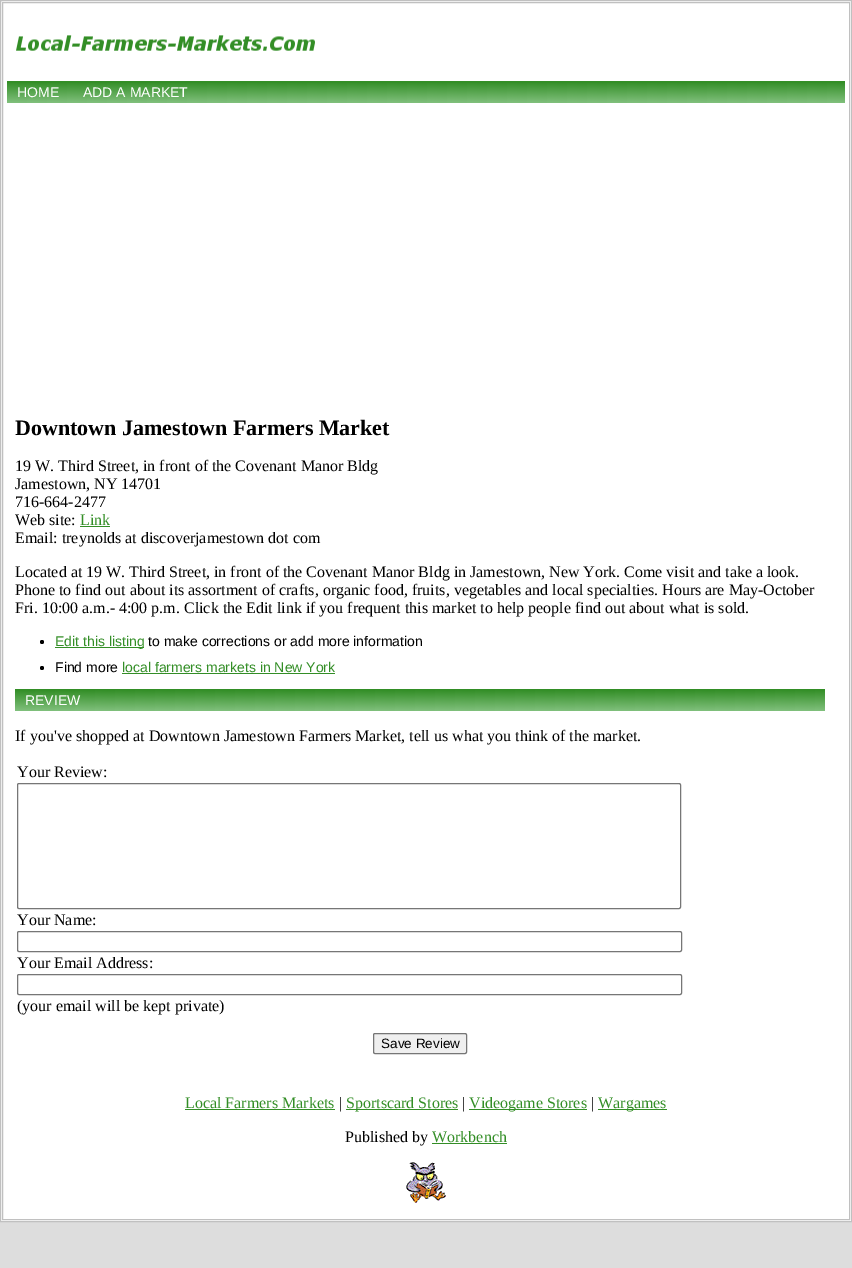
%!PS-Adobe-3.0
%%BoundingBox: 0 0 852 1268
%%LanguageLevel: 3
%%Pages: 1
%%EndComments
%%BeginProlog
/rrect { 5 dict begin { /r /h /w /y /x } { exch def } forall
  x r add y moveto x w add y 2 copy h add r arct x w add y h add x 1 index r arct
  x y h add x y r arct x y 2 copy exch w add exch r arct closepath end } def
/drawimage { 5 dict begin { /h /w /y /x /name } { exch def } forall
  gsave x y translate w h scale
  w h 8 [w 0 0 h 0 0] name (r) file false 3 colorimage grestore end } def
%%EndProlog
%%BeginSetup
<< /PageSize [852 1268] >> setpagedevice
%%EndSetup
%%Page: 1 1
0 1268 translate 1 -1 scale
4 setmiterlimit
0.867 setgray
0 0 852 1268 rectfill
1 setgray
newpath 0.5 0.5 moveto 851.5 0.5 lineto 851.5 1221.5 lineto 0.5 1221.5 lineto closepath gsave fill grestore
0.753 setgray
stroke
2.5 2.5 847 1217 rectstroke
(images/1.raw) 16 35 299 16 drawimage
0.2 0.557 0.149 setrgbcolor
7 81 838 2 rectfill
(images/2.raw) 7 83 838 20 drawimage
80 526 30 1 rectfill
0 setgray
newpath 42 642 2 0 360 arc closepath fill
0.2 0.557 0.149 setrgbcolor
55 647 89 1 rectfill
0 setgray
newpath 42 668 2 0 360 arc closepath fill
0.2 0.557 0.149 setrgbcolor
122 673 213 1 rectfill
(images/3.raw) 15 689 810 22 drawimage
0.463 setgray
17.5 783.5 663 125 1.5 rrect stroke
17.5 931.5 664 20 1.5 rrect stroke
17.5 974.5 664 20 1.5 rrect stroke
0.937 setgray
373.5 1033.5 93 20 1.5 rrect gsave fill grestore
0.463 setgray
stroke
0.2 0.557 0.149 setrgbcolor
185 1109 150 1 rectfill
346 1109 112 1 rectfill
469 1109 118 1 rectfill
598 1109 69 1 rectfill
432 1143 75 1 rectfill
(images/4.raw) 406 1162 40 41 drawimage
/LiberationSans-Regular [14 0 0 -14 0 0] selectfont
1 setgray
17 97 moveto (HOME) show
83 97 moveto (ADD A MARKET) show
/LiberationSerif-Bold [22 0 0 -22 0 0] selectfont
0 setgray
15 435 moveto (Downtown Jamestown Farmers Market) show
/LiberationSerif-Regular [16 0 0 -16 0 0] selectfont
15 471 moveto (19 W. Third Street, in front of the Covenant Manor Bldg) show
15 489 moveto (Jamestown, NY 14701) show
15 507 moveto (716-664-2477) show
15 525 moveto (Web site:) show
0.2 0.557 0.149 setrgbcolor
80 525 moveto (Link) show
0 setgray
15 543 moveto (Email: treynolds at discoverjamestown dot com) show
15 577 moveto (Located at 19 W. Third Street, in front of the Covenant Manor Bldg in Jamestown, New York. Come visit and take a look.) show
15 595 moveto (Phone to find out about its assortment of crafts, organic food, fruits, vegetables and local specialties. Hours are May-October) show
15 613 moveto (Fri. 10:00 a.m.- 4:00 p.m. Click the Edit link if you frequent this market to help people find out about what is sold.) show
/LiberationSans-Regular [14 0 0 -14 0 0] selectfont
0.2 0.557 0.149 setrgbcolor
55 646 moveto (Edit this listing) show
0 setgray
148 646 moveto (to make corrections or add more information) show
55 672 moveto (Find more) show
0.2 0.557 0.149 setrgbcolor
122 672 moveto (local farmers markets in New York) show
1 setgray
25 705 moveto (REVIEW) show
/LiberationSerif-Regular [16 0 0 -16 0 0] selectfont
0 setgray
15 741 moveto (If you've shopped at Downtown Jamestown Farmers Market, tell us what you think of the market.) show
17 777 moveto (Your Review:) show
17 925 moveto (Your Name:) show
17 968 moveto (Your Email Address:) show
17 1011 moveto (\(your email will be kept private\)) show
/LiberationSans-Regular [13.5 0 0 -13.5 0 0] selectfont
381 1048 moveto (Save Review) show
/LiberationSerif-Regular [16 0 0 -16 0 0] selectfont
0.2 0.557 0.149 setrgbcolor
185 1108 moveto (Local Farmers Markets) show
0 setgray
339 1108 moveto (|) show
0.2 0.557 0.149 setrgbcolor
346 1108 moveto (Sportscard Stores) show
0 setgray
462 1108 moveto (|) show
0.2 0.557 0.149 setrgbcolor
469 1108 moveto (Videogame Stores) show
0 setgray
591 1108 moveto (|) show
0.2 0.557 0.149 setrgbcolor
598 1108 moveto (Wargames) show
0 setgray
345 1142 moveto (Published by) show
0.2 0.557 0.149 setrgbcolor
432 1142 moveto (Workbench) show
showpage
%%EOF
